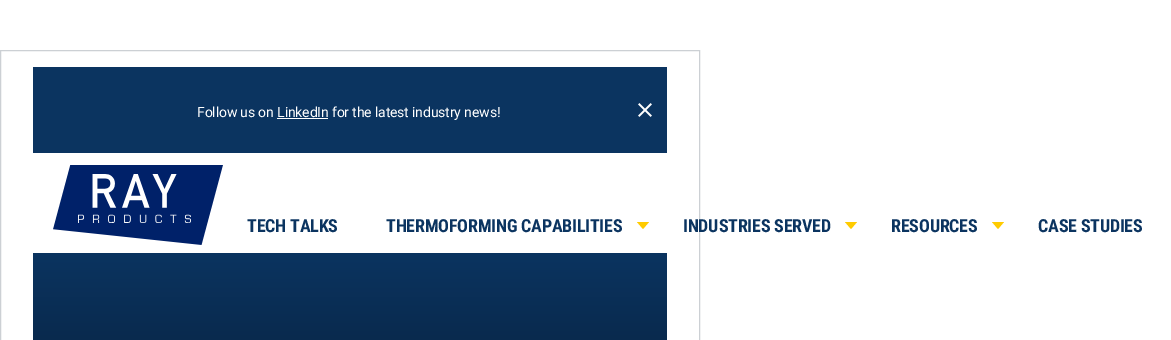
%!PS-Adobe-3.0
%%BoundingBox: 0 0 1171 340
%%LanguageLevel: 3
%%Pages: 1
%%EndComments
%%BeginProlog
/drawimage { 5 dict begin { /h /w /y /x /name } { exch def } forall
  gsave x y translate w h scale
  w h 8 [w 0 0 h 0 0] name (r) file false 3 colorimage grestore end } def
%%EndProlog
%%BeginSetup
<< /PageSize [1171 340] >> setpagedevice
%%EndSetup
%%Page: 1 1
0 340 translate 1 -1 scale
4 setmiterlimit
1 setgray
0 0 1171 340 rectfill
0.8 0.816 0.831 setrgbcolor
0.5 50.5 699 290 rectstroke
0.043 0.204 0.376 setrgbcolor
33 67 634 86 rectfill
1 setgray
277 118 51 1 rectfill
(images/1.raw) 638 103 14 14 drawimage
(images/2.raw) 53 165 170 80 drawimage
1 0.796 0 setrgbcolor
newpath 637 222 moveto 649 222 lineto 643 229 lineto closepath fill
newpath 845 222 moveto 857 222 lineto 851 229 lineto closepath fill
newpath 992 222 moveto 1004 222 lineto 998 229 lineto closepath fill
gsave newpath 33 253 moveto 667 253 lineto 667 340 lineto 33 340 lineto closepath clip newpath
<< /ShadingType 2 /ColorSpace /DeviceRGB /Coords [350 253 350 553] /Extend [true true] /Function << /FunctionType 2 /Domain [0 1] /C0 [0.043 0.204 0.376] /C1 [0.016 0.071 0.137] /N 1 >> >> shfill grestore
/Roboto-Regular [14 0 0 -14 0 0] selectfont
1 setgray
197 117 moveto -0.15 0 (Follow us on LinkedIn for the latest industry news!) ashow
/RobotoCondensed-Bold [18 0 0 -18 0 0] selectfont
0.043 0.204 0.376 setrgbcolor
247 232 moveto -0.2 0 (TECH TALKS) ashow
386 232 moveto -0.2 0 (THERMOFORMING CAPABILITIES) ashow
683 232 moveto -0.2 0 (INDUSTRIES SERVED) ashow
891 232 moveto -0.2 0 (RESOURCES) ashow
1038 232 moveto -0.2 0 (CASE STUDIES) ashow
showpage
%%EOF
